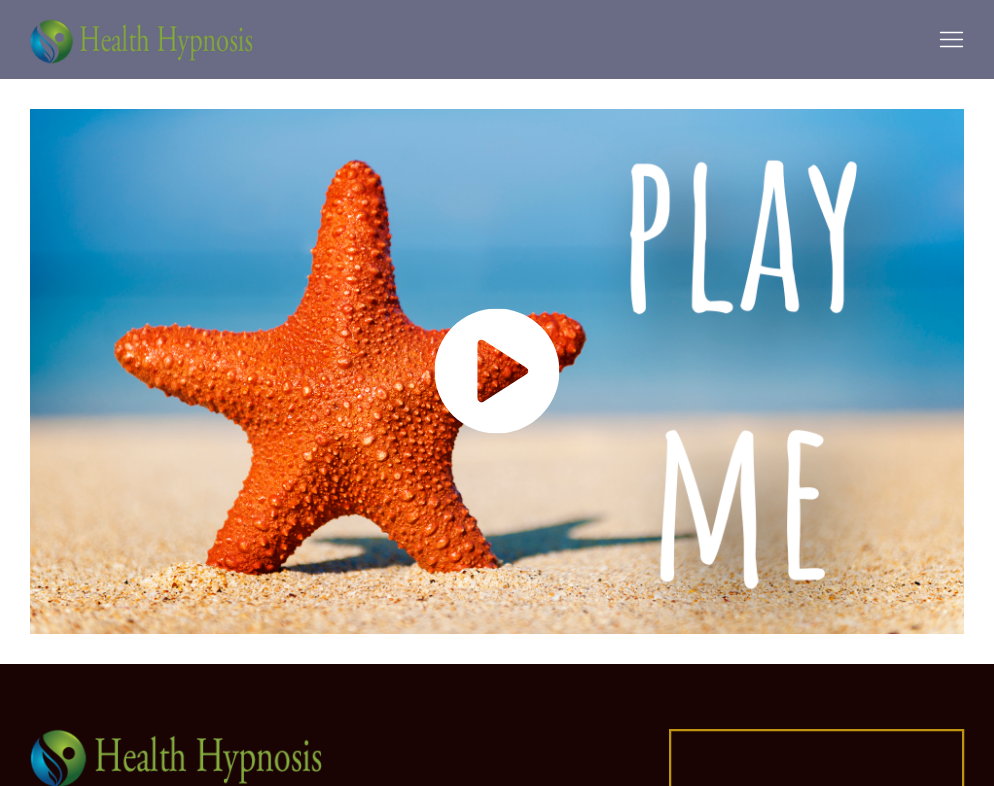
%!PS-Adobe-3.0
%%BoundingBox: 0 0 994 786
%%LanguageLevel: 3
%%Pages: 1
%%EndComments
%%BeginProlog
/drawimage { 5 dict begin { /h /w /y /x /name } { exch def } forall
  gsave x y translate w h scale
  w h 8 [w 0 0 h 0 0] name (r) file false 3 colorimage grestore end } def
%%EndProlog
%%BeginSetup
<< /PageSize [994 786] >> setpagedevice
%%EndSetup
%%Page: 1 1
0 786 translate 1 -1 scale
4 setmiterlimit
1 setgray
0 0 994 786 rectfill
0.416 0.42 0.518 setrgbcolor
0 0 994 79 rectfill
(images/1.raw) 30 19 223 45 drawimage
(images/2.raw) 939 31 25 17 drawimage
(images/3.raw) 30 109 934 525 drawimage
(images/4.raw) 434 308 126 126 drawimage
0.102 0.016 0.012 setrgbcolor
0 664 994 122 rectfill
(images/5.raw) 30 729 292 57 drawimage
0.749 0.58 0.063 setrgbcolor
2 setlinewidth
670 730 293 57 rectstroke
showpage
%%EOF
